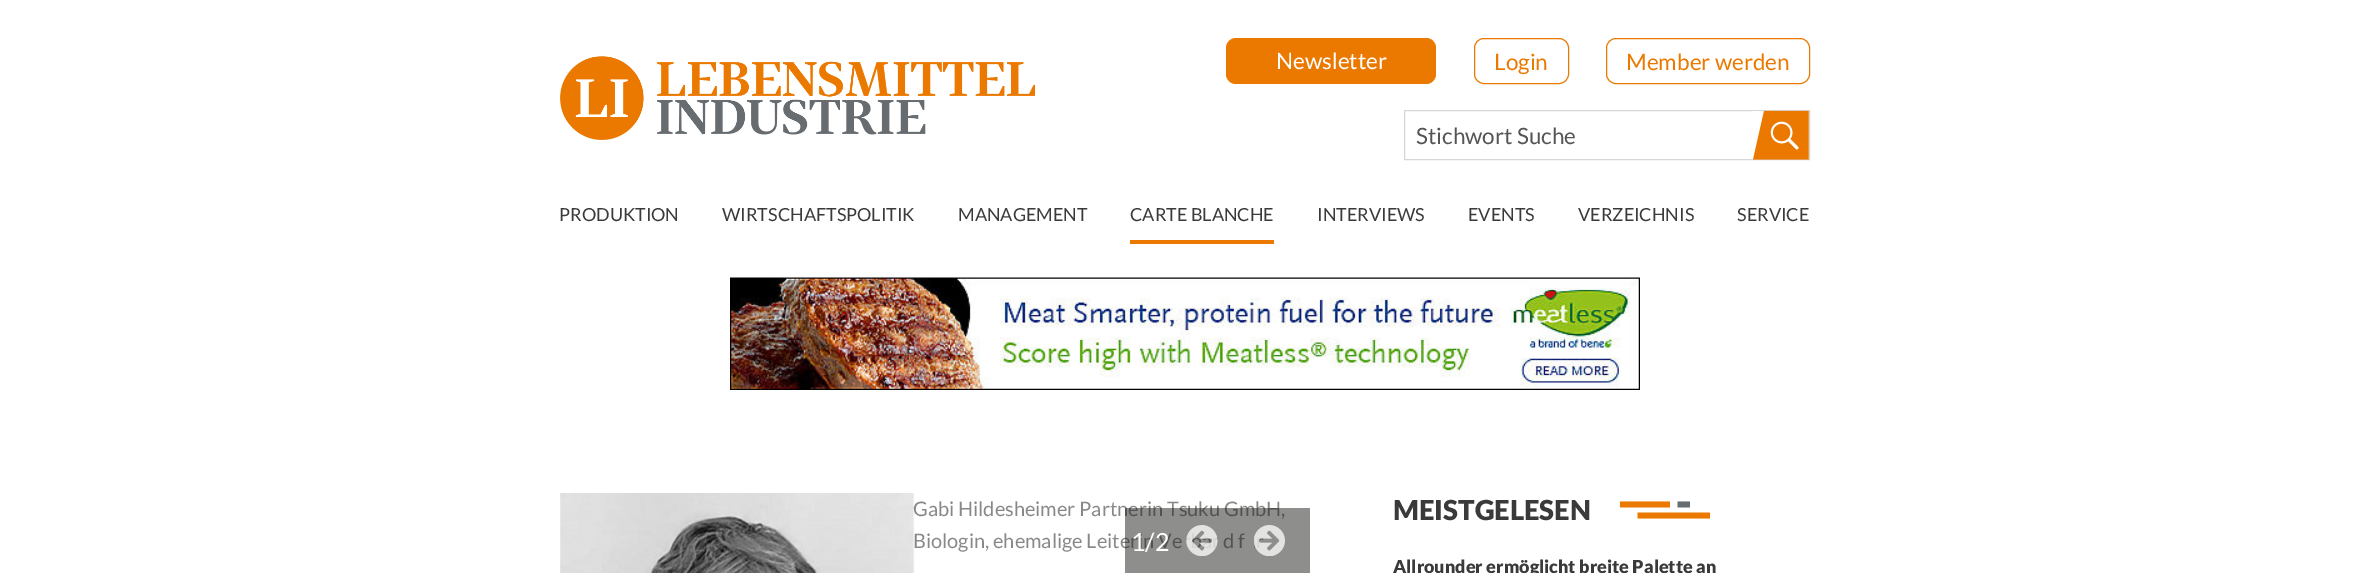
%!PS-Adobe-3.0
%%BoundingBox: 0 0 2368 573
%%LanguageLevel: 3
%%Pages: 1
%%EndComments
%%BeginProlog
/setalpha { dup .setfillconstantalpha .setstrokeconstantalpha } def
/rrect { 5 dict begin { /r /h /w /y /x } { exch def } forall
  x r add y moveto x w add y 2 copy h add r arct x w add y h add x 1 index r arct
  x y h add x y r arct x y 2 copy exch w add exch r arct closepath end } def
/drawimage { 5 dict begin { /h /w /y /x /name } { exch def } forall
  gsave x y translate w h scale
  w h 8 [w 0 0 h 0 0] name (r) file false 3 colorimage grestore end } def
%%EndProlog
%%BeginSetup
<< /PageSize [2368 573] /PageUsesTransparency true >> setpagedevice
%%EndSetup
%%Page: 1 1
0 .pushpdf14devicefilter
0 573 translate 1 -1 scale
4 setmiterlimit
1 setgray
0 0 2368 573 rectfill
(images/1.raw) 560 56 475 84 drawimage
0.922 0.475 0 setrgbcolor
1226 38 210 46 10 rrect fill
1474.5 38.5 94 45 9.5 rrect stroke
1606.5 38.5 203 45 9.5 rrect stroke
0.839 setgray
1404.5 110.5 405 49 rectstroke
(images/2.raw) 1753 110 56 50 drawimage
0.922 0.475 0 setrgbcolor
1130 240 144 4 rectfill
(images/3.raw) 730 277 910 113 drawimage
(images/4.raw) 560 493 355 80 drawimage
(images/7.raw) 1620 501 90 18 drawimage
/Lato-Regular [22.5 0 0 -22.5 0 0] selectfont
1 setgray
1276 69 moveto (Newsletter) show
0.922 0.475 0 setrgbcolor
1494 70 moveto (Login) show
1626 70 moveto (Member werden) show
0.333 setgray
1416 144 moveto (Stichwort Suche) show
/Lato-Regular [18 0 0 -18 0 0] selectfont
0.227 setgray
559 221 moveto (PRODUKTION) show
722 221 moveto (WIRTSCHAFTSPOLITIK) show
958 221 moveto (MANAGEMENT) show
1130 221 moveto (CARTE BLANCHE) show
1317 221 moveto (INTERVIEWS) show
1468 221 moveto (EVENTS) show
1578 221 moveto (VERZEICHNIS) show
1737 221 moveto (SERVICE) show
/Lato-Regular [20 0 0 -20 0 0] selectfont
0.533 setgray
913 516 moveto (Gabi Hildesheimer Partnerin Tsuku GmbH,) show
913 548 moveto (Biologin, ehemalige Leiterin Ve) show
1223 548 moveto (d f) show
0.5 setalpha
0.114 0.114 0.106 setrgbcolor
1125 508 185 65 rectfill
/Lato-Regular [25 0 0 -25 0 0] selectfont
1 setalpha
1 setgray
1131 551 moveto (1/2) show
(images/5.raw) 1186 525 32 31 drawimage
(images/6.raw) 1254 525 31 31 drawimage
/Lato-Black [27.5 0 0 -27.5 0 0] selectfont
0.227 setgray
1393 520 moveto (MEISTGELESEN) show
/Lato-Black [18 0 0 -18 0 0] selectfont
1393 573 moveto (Allrounder ermöglicht breite Palette an) show
.poppdf14devicefilter showpage
%%EOF
